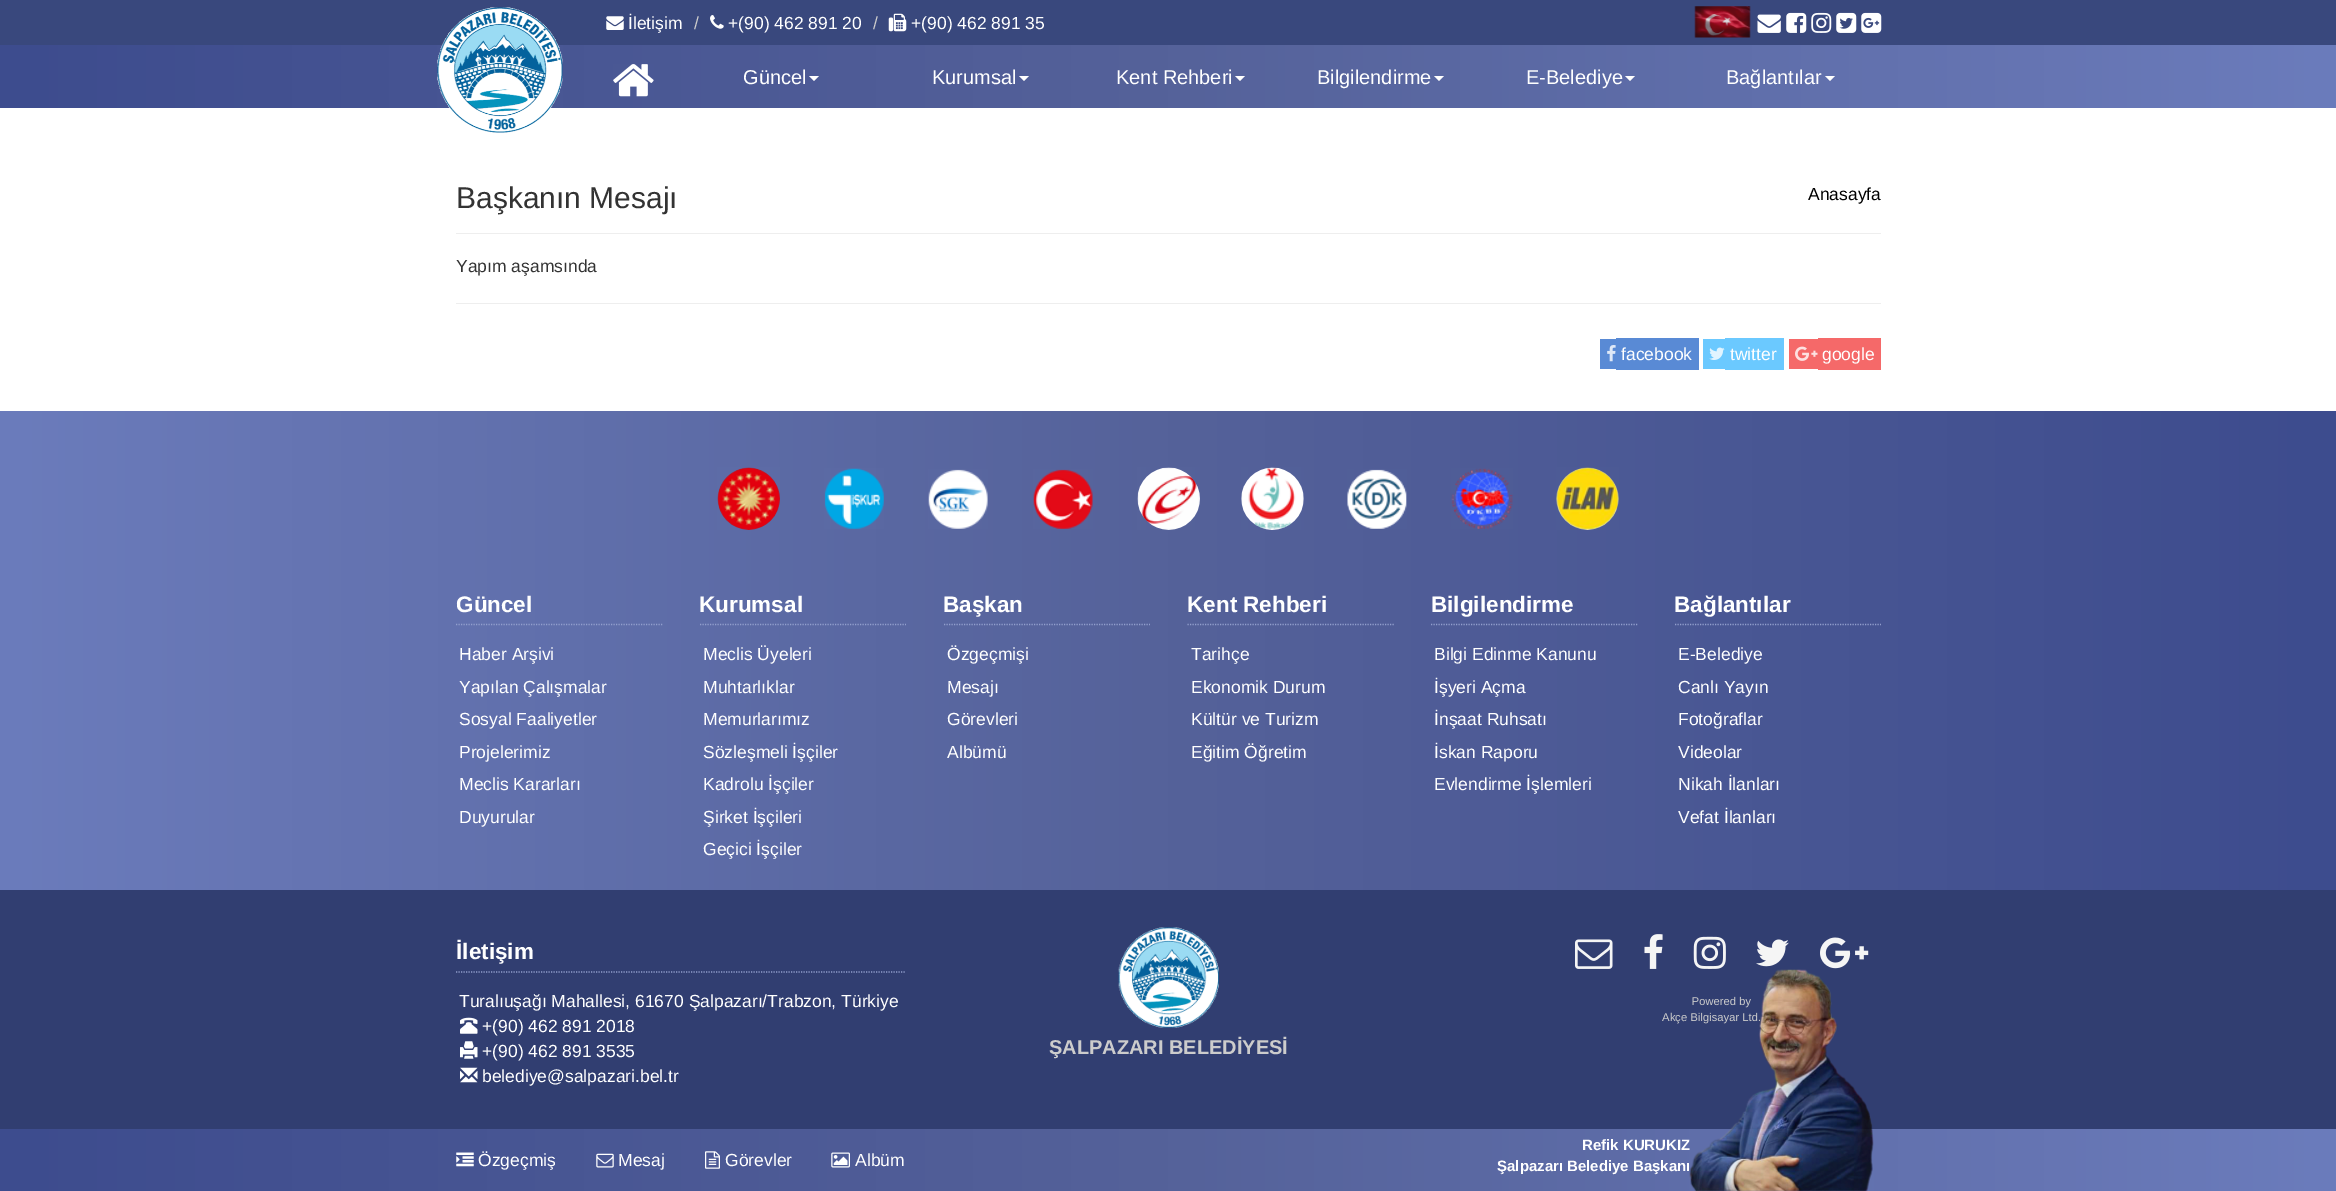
%!PS-Adobe-3.0
%%BoundingBox: 0 0 2336 1191
%%LanguageLevel: 3
%%Pages: 1
%%EndComments
%%BeginProlog
/drawimage { 5 dict begin { /h /w /y /x /name } { exch def } forall
  gsave x y translate w h scale
  w h 8 [w 0 0 h 0 0] name (r) file false 3 colorimage grestore end } def
%%EndProlog
%%BeginSetup
<< /PageSize [2336 1191] >> setpagedevice
%%EndSetup
%%Page: 1 1
0 1191 translate 1 -1 scale
4 setmiterlimit
1 setgray
0 0 2336 1191 rectfill
0.224 0.282 0.49 setrgbcolor
0 0 2336 45 rectfill
(images/1.raw) 606 16 18 14 drawimage
(images/2.raw) 710 15 14 14 drawimage
(images/3.raw) 888 13 19 19 drawimage
(images/4.raw) 1694 6 57 32 drawimage
(images/5.raw) 1757 14 24 19 drawimage
(images/6.raw) 1786 12 21 21 drawimage
(images/7.raw) 1811 12 21 21 drawimage
(images/8.raw) 1836 12 21 21 drawimage
(images/9.raw) 1861 12 21 21 drawimage
gsave newpath 0 45 moveto 2336 45 lineto 2336 108 lineto 0 108 lineto closepath clip newpath
<< /ShadingType 2 /ColorSpace /DeviceRGB /Coords [0 76 2336 76] /Extend [true true] /Function << /FunctionType 3 /Domain [0 1] /Functions [<< /FunctionType 2 /Domain [0 1] /C0 [0.239 0.298 0.557] /C1 [0.333 0.384 0.604] /N 1 >> << /FunctionType 2 /Domain [0 1] /C0 [0.333 0.384 0.604] /C1 [0.42 0.486 0.737] /N 1 >>] /Bounds [0.5] /Encode [0 1 0 1] >> >> shfill grestore
(images/10.raw) 437 7 126 126 drawimage
(images/11.raw) 613 64 41 33 drawimage
1 setgray
newpath 809 76 moveto 819 76 lineto 814 81 lineto closepath fill
newpath 1019 76 moveto 1029 76 lineto 1024 81 lineto closepath fill
newpath 1235 76 moveto 1245 76 lineto 1240 81 lineto closepath fill
newpath 1434 76 moveto 1444 76 lineto 1439 81 lineto closepath fill
newpath 1625 76 moveto 1635 76 lineto 1630 81 lineto closepath fill
newpath 1825 76 moveto 1835 76 lineto 1830 81 lineto closepath fill
0.933 setgray
456 233 1425 1 rectfill
456 303 1425 1 rectfill
0.349 0.541 0.835 setrgbcolor
1600 339 16 30 rectfill
1616 338 83 32 rectfill
(images/12.raw) 1607 345 9 17 drawimage
0.42 0.788 1 setrgbcolor
1703 339 22 30 rectfill
1725 338 59 32 rectfill
(images/13.raw) 1709 347 16 13 drawimage
0.961 0.412 0.412 setrgbcolor
1789 339 29 30 rectfill
1818 338 63 32 rectfill
(images/14.raw) 1795 346 23 15 drawimage
gsave newpath 0 411 moveto 2336 411 lineto 2336 890 lineto 0 890 lineto closepath clip newpath
<< /ShadingType 2 /ColorSpace /DeviceRGB /Coords [2336 651 0 651] /Extend [true true] /Function << /FunctionType 3 /Domain [0 1] /Functions [<< /FunctionType 2 /Domain [0 1] /C0 [0.239 0.298 0.557] /C1 [0.333 0.384 0.604] /N 1 >> << /FunctionType 2 /Domain [0 1] /C0 [0.333 0.384 0.604] /C1 [0.42 0.486 0.737] /N 1 >>] /Bounds [0.5] /Encode [0 1 0 1] >> >> shfill grestore
(images/15.raw) 717 467 63 63 drawimage
(images/16.raw) 824 468 60 61 drawimage
(images/17.raw) 928 469 60 60 drawimage
(images/18.raw) 1033 469 60 60 drawimage
(images/19.raw) 1137 467 63 63 drawimage
(images/20.raw) 1241 467 63 63 drawimage
(images/21.raw) 1347 469 60 60 drawimage
(images/22.raw) 1451 468 62 61 drawimage
(images/23.raw) 1556 467 63 63 drawimage
0.573 0.624 0.804 setrgbcolor
1.2 setlinewidth
[1.25 1.25] 0 setdash
newpath 456 624.5 moveto 662.5 624.5 lineto stroke
newpath 700 624.5 moveto 906 624.5 lineto stroke
newpath 944 624.5 moveto 1150 624.5 lineto stroke
newpath 1187.5 624.5 moveto 1394 624.5 lineto stroke
newpath 1431 624.5 moveto 1637.5 624.5 lineto stroke
newpath 1675 624.5 moveto 1881 624.5 lineto stroke
0.192 0.243 0.443 setrgbcolor
0 890 2336 239 rectfill
0.573 0.624 0.804 setrgbcolor
newpath 456 972 moveto 906 972 lineto stroke
(images/24.raw) 460 1017 18 17 drawimage
(images/25.raw) 460 1041 18 18 drawimage
(images/26.raw) 460 1067 18 16 drawimage
(images/27.raw) 1575 939 38 30 drawimage
(images/28.raw) 1644 934 19 35 drawimage
(images/29.raw) 1693 936 33 33 drawimage
(images/30.raw) 1756 939 33 28 drawimage
(images/31.raw) 1820 937 49 32 drawimage
(images/32.raw) 1118 927 101 101 drawimage
gsave newpath 0 1129 moveto 2336 1129 lineto 2336 1191 lineto 0 1191 lineto closepath clip newpath
<< /ShadingType 2 /ColorSpace /DeviceRGB /Coords [0 1160 2336 1160] /Extend [true true] /Function << /FunctionType 3 /Domain [0 1] /Functions [<< /FunctionType 2 /Domain [0 1] /C0 [0.239 0.298 0.557] /C1 [0.333 0.384 0.604] /N 1 >> << /FunctionType 2 /Domain [0 1] /C0 [0.333 0.384 0.604] /C1 [0.42 0.486 0.737] /N 1 >>] /Bounds [0.5] /Encode [0 1 0 1] >> >> shfill grestore
(images/33.raw) 456 1152 18 15 drawimage
(images/34.raw) 596 1153 18 15 drawimage
(images/35.raw) 705 1151 15 18 drawimage
(images/36.raw) 831 1152 19 16 drawimage
/LiberationSans-Regular [17.5 0 0 -17.5 0 0] selectfont
1 setgray
628 29 moveto (İletişim) show
0.8 setgray
694 29 moveto (/) show
1 setgray
728 29 moveto (+\(90\) 462 891 20) show
0.8 setgray
873 29 moveto (/) show
1 setgray
911 29 moveto (+\(90\) 462 891 35) show
/LiberationSans-Regular [20 0 0 -20 0 0] selectfont
743 84 moveto (Güncel) show
932 84 moveto (Kurumsal) show
1116 84 moveto (Kent Rehberi) show
1317 84 moveto (Bilgilendirme) show
1526 84 moveto (E-Belediye) show
1726 84 moveto (Bağlantılar) show
/LiberationSans-Regular [30 0 0 -30 0 0] selectfont
0.2 setgray
456 208 moveto (Başkanın Mesajı) show
/LiberationSans-Regular [17.5 0 0 -17.5 0 0] selectfont
0 setgray
1808 200 moveto (Anasayfa) show
0.2 setgray
456 272 moveto (Yapım aşamsında) show
1 setgray
1621 360 moveto (facebook) show
1730 360 moveto (twitter) show
1822 360 moveto (google) show
/LiberationSans-Bold [22.5 0 0 -22.5 0 0] selectfont
456 612 moveto (Güncel) show
/LiberationSans-Regular [17.5 0 0 -17.5 0 0] selectfont
459 660 moveto (Haber Arşivi) show
459 693 moveto (Yapılan Çalışmalar) show
459 725 moveto (Sosyal Faaliyetler) show
459 758 moveto (Projelerimiz) show
459 790 moveto (Meclis Kararları) show
459 823 moveto (Duyurular) show
/LiberationSans-Bold [22.5 0 0 -22.5 0 0] selectfont
699 612 moveto (Kurumsal) show
/LiberationSans-Regular [17.5 0 0 -17.5 0 0] selectfont
703 660 moveto (Meclis Üyeleri) show
703 693 moveto (Muhtarlıklar) show
703 725 moveto (Memurlarımız) show
703 758 moveto (Sözleşmeli İşçiler) show
703 790 moveto (Kadrolu İşçiler) show
703 823 moveto (Şirket İşçileri) show
703 855 moveto (Geçici İşçiler) show
/LiberationSans-Bold [22.5 0 0 -22.5 0 0] selectfont
943 612 moveto (Başkan) show
/LiberationSans-Regular [17.5 0 0 -17.5 0 0] selectfont
947 660 moveto (Özgeçmişi) show
947 693 moveto (Mesajı) show
947 725 moveto (Görevleri) show
947 758 moveto (Albümü) show
/LiberationSans-Bold [22.5 0 0 -22.5 0 0] selectfont
1187 612 moveto (Kent Rehberi) show
/LiberationSans-Regular [17.5 0 0 -17.5 0 0] selectfont
1191 660 moveto (Tarihçe) show
1191 693 moveto (Ekonomik Durum) show
1191 725 moveto (Kültür ve Turizm) show
1191 758 moveto (Eğitim Öğretim) show
/LiberationSans-Bold [22.5 0 0 -22.5 0 0] selectfont
1431 612 moveto (Bilgilendirme) show
/LiberationSans-Regular [17.5 0 0 -17.5 0 0] selectfont
1434 660 moveto (Bilgi Edinme Kanunu) show
1434 693 moveto (İşyeri Açma) show
1434 725 moveto (İnşaat Ruhsatı) show
1434 758 moveto (İskan Raporu) show
1434 790 moveto (Evlendirme İşlemleri) show
/LiberationSans-Bold [22.5 0 0 -22.5 0 0] selectfont
1674 612 moveto (Bağlantılar) show
/LiberationSans-Regular [17.5 0 0 -17.5 0 0] selectfont
1678 660 moveto (E-Belediye) show
1678 693 moveto (Canlı Yayın) show
1678 725 moveto (Fotoğraflar) show
1678 758 moveto (Videolar) show
1678 790 moveto (Nikah İlanları) show
1678 823 moveto (Vefat İlanları) show
/LiberationSans-Bold [22.5 0 0 -22.5 0 0] selectfont
456 959 moveto (İletişim) show
/LiberationSans-Regular [17.5 0 0 -17.5 0 0] selectfont
459 1007 moveto (Turalıuşağı Mahallesi, 61670 Şalpazarı/Trabzon, Türkiye) show
482 1032 moveto (+\(90\) 462 891 2018) show
482 1057 moveto (+\(90\) 462 891 3535) show
482 1082 moveto (belediye@salpazari.bel.tr) show
/LiberationSans-Regular [11.25 0 0 -11.25 0 0] selectfont
0.8 setgray
1692 1005 moveto (Powered by) show
1662 1021 moveto (Akçe Bilgisayar Ltd.) show
/LiberationSans-Bold [20 0 0 -20 0 0] selectfont
1049 1054 moveto (ŞALPAZARI BELEDİYESİ) show
/LiberationSans-Regular [17.5 0 0 -17.5 0 0] selectfont
1 setgray
478 1166 moveto (Özgeçmiş) show
618 1166 moveto (Mesaj) show
725 1166 moveto (Görevler) show
855 1166 moveto (Albüm) show
/LiberationSans-Bold [15 0 0 -15 0 0] selectfont
1582 1150 moveto (Refik KURUKIZ) show
1497 1171 moveto (Şalpazarı Belediye Başkanı) show
(images/37.raw) 1689 969 185 222 drawimage
showpage
%%EOF
